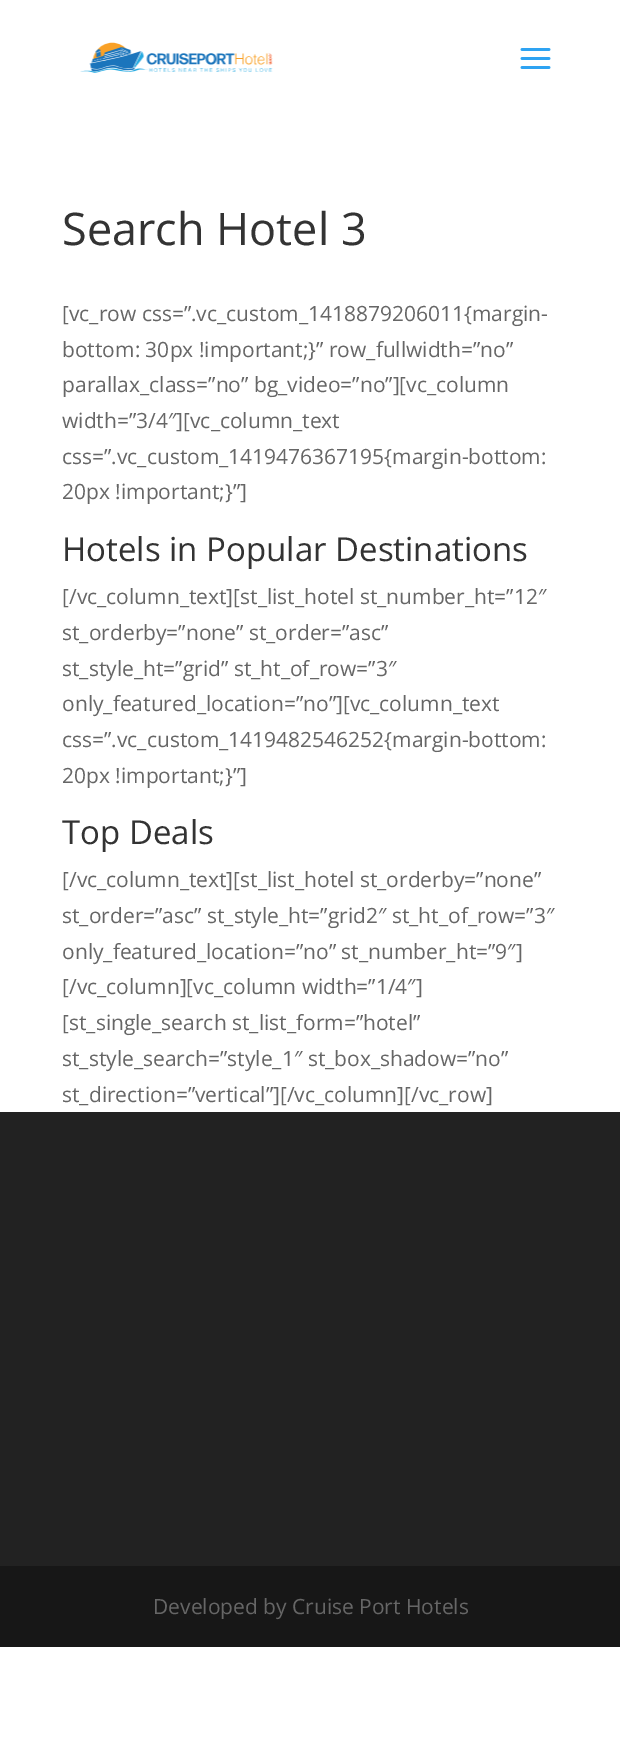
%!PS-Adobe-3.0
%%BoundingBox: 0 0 620 1742
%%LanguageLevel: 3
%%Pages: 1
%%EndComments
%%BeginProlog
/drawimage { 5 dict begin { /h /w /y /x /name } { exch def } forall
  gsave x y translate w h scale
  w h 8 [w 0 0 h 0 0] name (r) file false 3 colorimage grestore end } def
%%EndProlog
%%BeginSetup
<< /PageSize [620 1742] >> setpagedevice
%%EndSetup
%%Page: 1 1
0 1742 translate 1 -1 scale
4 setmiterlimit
1 setgray
0 0 620 1742 rectfill
(images/1.raw) 80 42 193 31 drawimage
(images/2.raw) 520 48 31 21 drawimage
0.133 setgray
0 1112 620 454 rectfill
0.09 setgray
0 1566 620 81 rectfill
/OpenSans-Regular [45 0 0 -45 0 0] selectfont
0.2 setgray
62 245 moveto (Search Hotel 3) show
/OpenSans-Regular [21 0 0 -21 0 0] selectfont
0.4 setgray
62 321 moveto ([vc_row css=”.vc_custom_1418879206011{margin-) show
62 357 moveto (bottom: 30px !important;}” row_fullwidth=”no”) show
62 392 moveto (parallax_class=”no” bg_video=”no”][vc_column) show
62 428 moveto (width=”3/4″][vc_column_text) show
62 464 moveto (css=”.vc_custom_1419476367195{margin-bottom:) show
62 499 moveto (20px !important;}”]) show
/OpenSans-Regular [33 0 0 -33 0 0] selectfont
0.2 setgray
62 561 moveto (Hotels in Popular Destinations) show
/OpenSans-Regular [21 0 0 -21 0 0] selectfont
0.4 setgray
62 604 moveto ([/vc_column_text][st_list_hotel st_number_ht=”12″) show
62 640 moveto (st_orderby=”none” st_order=”asc”) show
62 676 moveto (st_style_ht=”grid” st_ht_of_row=”3″) show
62 711 moveto (only_featured_location=”no”][vc_column_text) show
62 747 moveto (css=”.vc_custom_1419482546252{margin-bottom:) show
62 783 moveto (20px !important;}”]) show
/OpenSans-Regular [33 0 0 -33 0 0] selectfont
0.2 setgray
62 844 moveto (Top Deals) show
/OpenSans-Regular [21 0 0 -21 0 0] selectfont
0.4 setgray
62 887 moveto ([/vc_column_text][st_list_hotel st_orderby=”none”) show
62 923 moveto (st_order=”asc” st_style_ht=”grid2″ st_ht_of_row=”3″) show
62 959 moveto (only_featured_location=”no” st_number_ht=”9″]) show
62 994 moveto ([/vc_column][vc_column width=”1/4″]) show
62 1030 moveto ([st_single_search st_list_form=”hotel”) show
62 1066 moveto (st_style_search=”style_1″ st_box_shadow=”no”) show
62 1102 moveto (st_direction=”vertical”][/vc_column][/vc_row]) show
153 1614 moveto (Developed by Cruise Port Hotels) show
showpage
%%EOF
